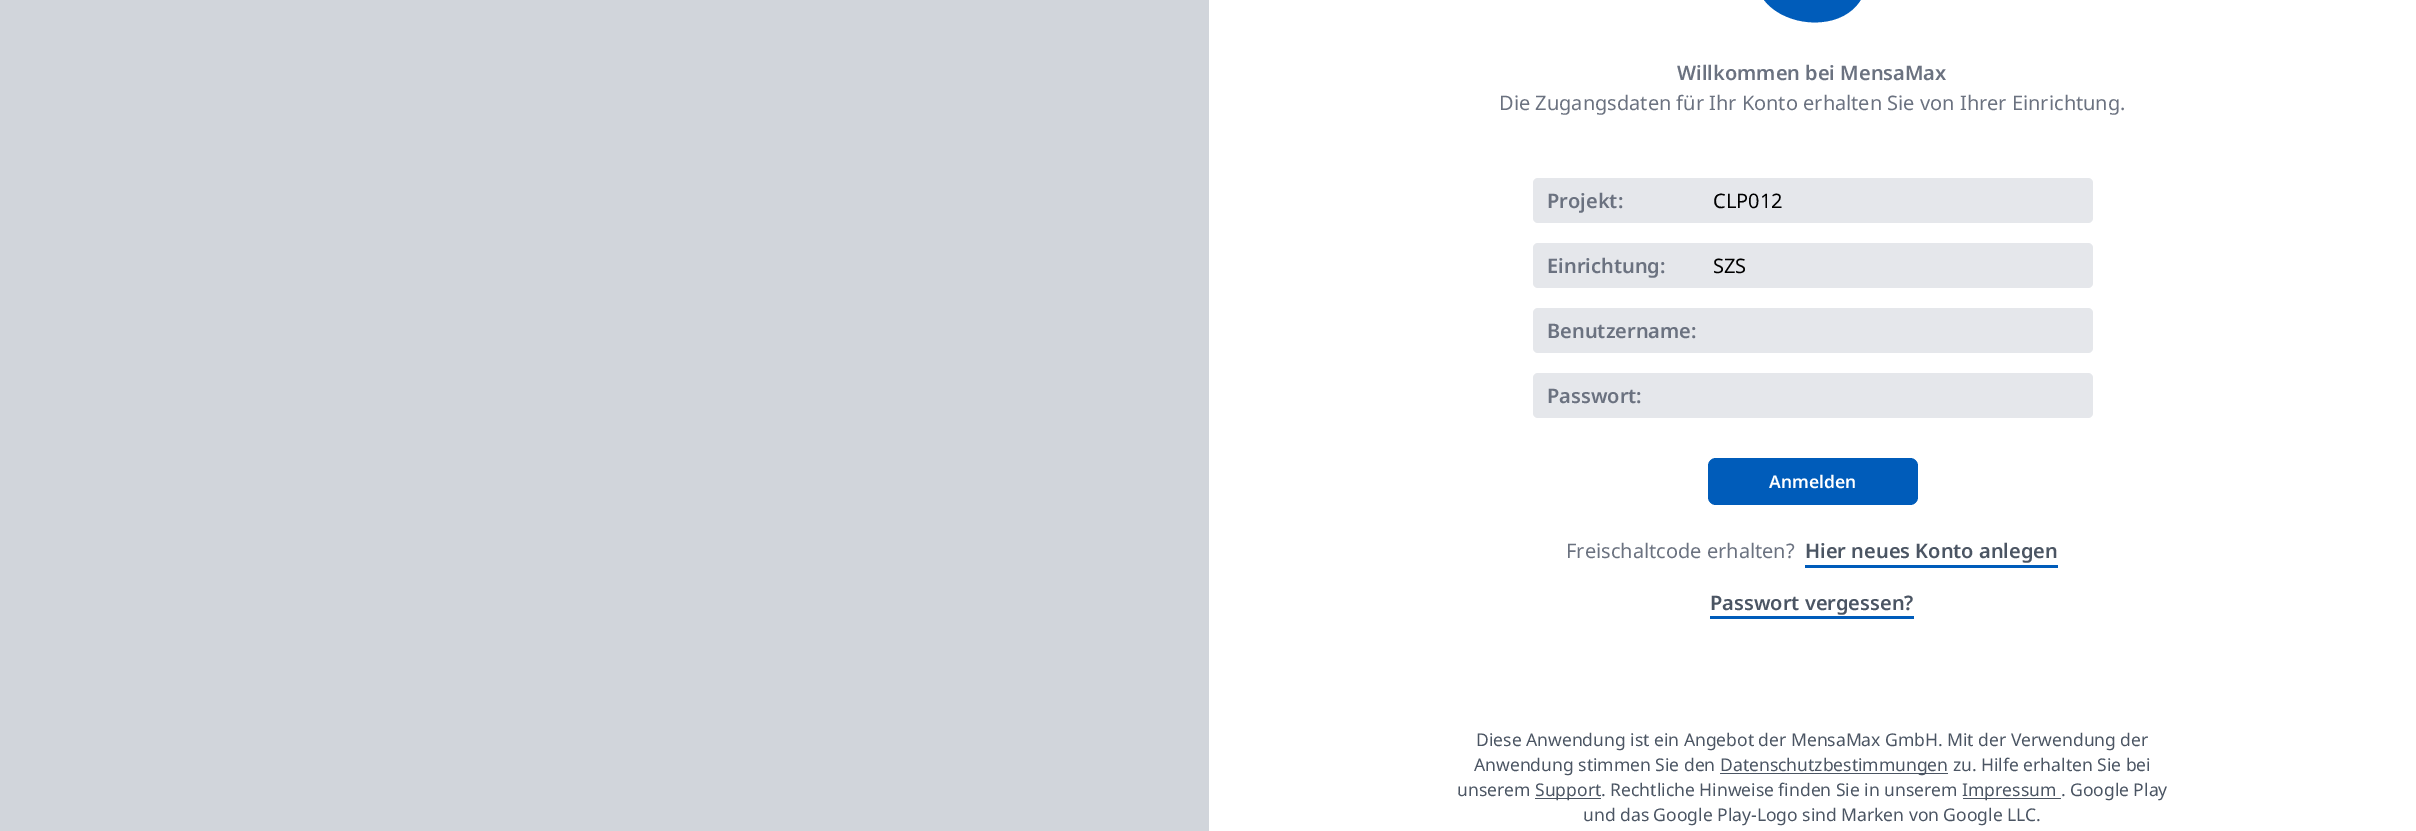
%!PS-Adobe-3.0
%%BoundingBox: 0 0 2416 831
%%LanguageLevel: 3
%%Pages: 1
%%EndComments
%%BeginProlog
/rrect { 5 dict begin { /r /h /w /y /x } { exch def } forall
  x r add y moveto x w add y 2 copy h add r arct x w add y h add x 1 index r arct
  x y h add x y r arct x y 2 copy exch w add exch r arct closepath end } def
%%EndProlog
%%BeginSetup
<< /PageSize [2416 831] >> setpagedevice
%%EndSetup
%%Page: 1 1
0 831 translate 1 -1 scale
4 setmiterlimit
1 setgray
0 0 2416 831 rectfill
0.82 0.835 0.859 setrgbcolor
0 0 1209 831 rectfill
0 0.361 0.729 setrgbcolor
newpath 1764 -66 moveto 1747 -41 1750 -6 1776 11 curveto 1801 28 1843 27 1860 1 curveto 1877 -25 1875 -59 1850 -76 curveto 1824 -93 1781 -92 1764 -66 curveto closepath fill
0.898 0.906 0.922 setrgbcolor
1533 178 560 45 5 rrect fill
1533 243 560 45 5 rrect fill
1533 308 560 45 5 rrect fill
1533 373 560 45 5 rrect fill
0 0.361 0.729 setrgbcolor
1708 458 210 47 8 rrect fill
1805 565 253 3 rectfill
1710 616 204 3 rectfill
0.294 0.333 0.388 setrgbcolor
1720 773 228 1 rectfill
1535 798 66 1 rectfill
1963 798 98 1 rectfill
/NotoSans-SemiBold [20 0 0 -20 0 0] selectfont
0.42 0.447 0.502 setrgbcolor
1677 80 moveto (Willkommen bei MensaMax) show
/NotoSans-Regular [20 0 0 -20 0 0] selectfont
1499 110 moveto (Die Zugangsdaten für Ihr Konto erhalten Sie von Ihrer Einrichtung.) show
/NotoSans-SemiBold [20 0 0 -20 0 0] selectfont
1547 208 moveto (Projekt:) show
/NotoSans-Regular [20 0 0 -20 0 0] selectfont
0 setgray
1713 208 moveto (CLP012) show
/NotoSans-SemiBold [20 0 0 -20 0 0] selectfont
0.42 0.447 0.502 setrgbcolor
1547 273 moveto (Einrichtung:) show
/NotoSans-Regular [20 0 0 -20 0 0] selectfont
0 setgray
1713 273 moveto (SZS) show
/NotoSans-SemiBold [20 0 0 -20 0 0] selectfont
0.42 0.447 0.502 setrgbcolor
1547 338 moveto (Benutzername:) show
1547 403 moveto (Passwort:) show
/NotoSans-SemiBold [17.5 0 0 -17.5 0 0] selectfont
1 setgray
1769 488 moveto (Anmelden) show
/NotoSans-Regular [20 0 0 -20 0 0] selectfont
0.42 0.447 0.502 setrgbcolor
1566 558 moveto (Freischaltcode erhalten?) show
/NotoSans-SemiBold [20 0 0 -20 0 0] selectfont
0.294 0.333 0.388 setrgbcolor
1805 558 moveto (Hier neues Konto anlegen) show
1710 610 moveto (Passwort vergessen?) show
/NotoSans-Regular [17.5 0 0 -17.5 0 0] selectfont
1476 746 moveto (Diese Anwendung ist ein Angebot der MensaMax GmbH. Mit der Verwendung der) show
1474 771 moveto (Anwendung stimmen Sie den) show
1720 771 moveto (Datenschutzbestimmungen zu. Hilfe erhalten Sie bei) show
1457 796 moveto (unserem) show
1535 796 moveto (Support. Rechtliche Hinweise finden Sie in unserem) show
1962 796 moveto (Impressum . Google Play) show
1583 821 moveto (und das Google Play-Logo sind Marken von Google LLC.) show
showpage
%%EOF
